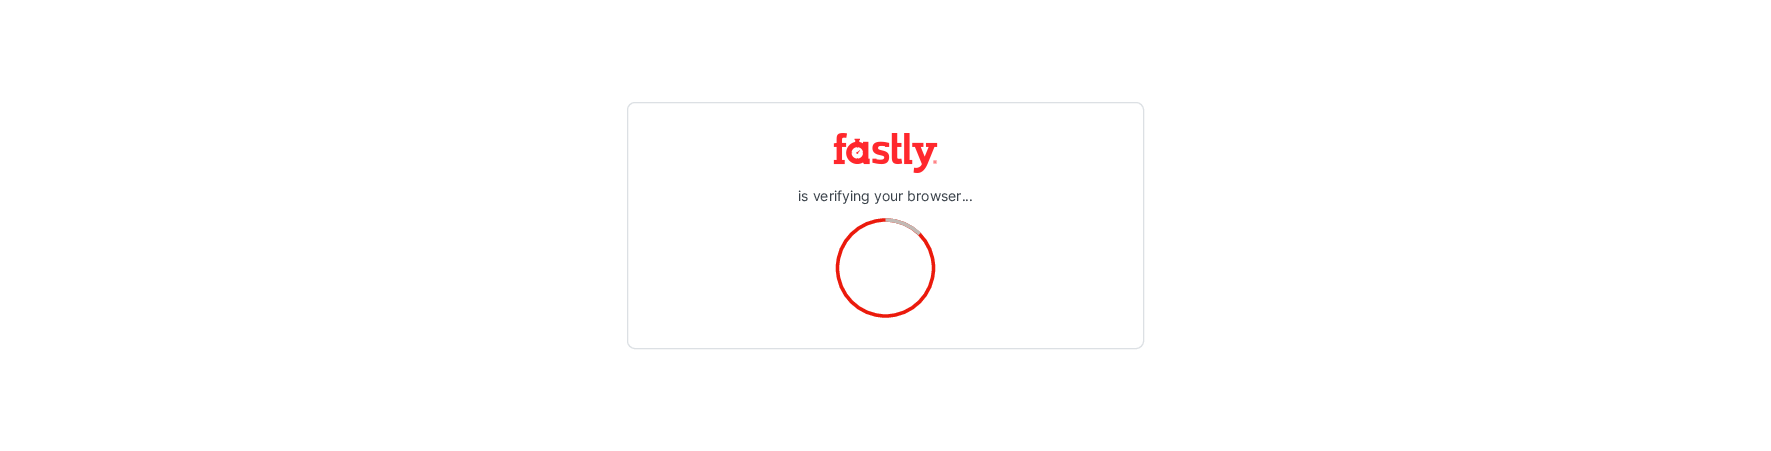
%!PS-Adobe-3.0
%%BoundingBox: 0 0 1771 451
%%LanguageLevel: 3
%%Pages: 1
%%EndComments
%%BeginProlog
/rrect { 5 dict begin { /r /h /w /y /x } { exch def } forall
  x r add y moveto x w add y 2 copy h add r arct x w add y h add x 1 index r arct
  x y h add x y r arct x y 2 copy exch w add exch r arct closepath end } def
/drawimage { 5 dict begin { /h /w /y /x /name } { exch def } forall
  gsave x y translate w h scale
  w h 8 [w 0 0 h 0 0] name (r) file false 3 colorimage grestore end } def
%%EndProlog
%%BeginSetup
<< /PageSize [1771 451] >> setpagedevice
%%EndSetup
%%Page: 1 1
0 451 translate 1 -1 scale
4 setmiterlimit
1 setgray
0 0 1771 451 rectfill
0.863 0.878 0.894 setrgbcolor
627.5 102.5 516 246 7.5 rrect stroke
(images/1.raw) 833 133 105 40 drawimage
0.922 0.102 0.047 setrgbcolor
3.3 setlinewidth
newpath 837.5 268 moveto 837.5 241.5 859 220 885.5 220 curveto 912 220 933.5 241.5 933.5 268 curveto 933.5 294.5 912 316 885.5 316 curveto 859 316 837.5 294.5 837.5 268 curveto closepath stroke
0.761 0.729 0.71 setrgbcolor
newpath 919.5 234 moveto 910.5 225 898 220 885.5 220 curveto stroke
/Inter-Regular [14 0 0 -14 0 0] selectfont
0.227 0.259 0.29 setrgbcolor
798 201 moveto (is verifying your browser...) show
showpage
%%EOF
